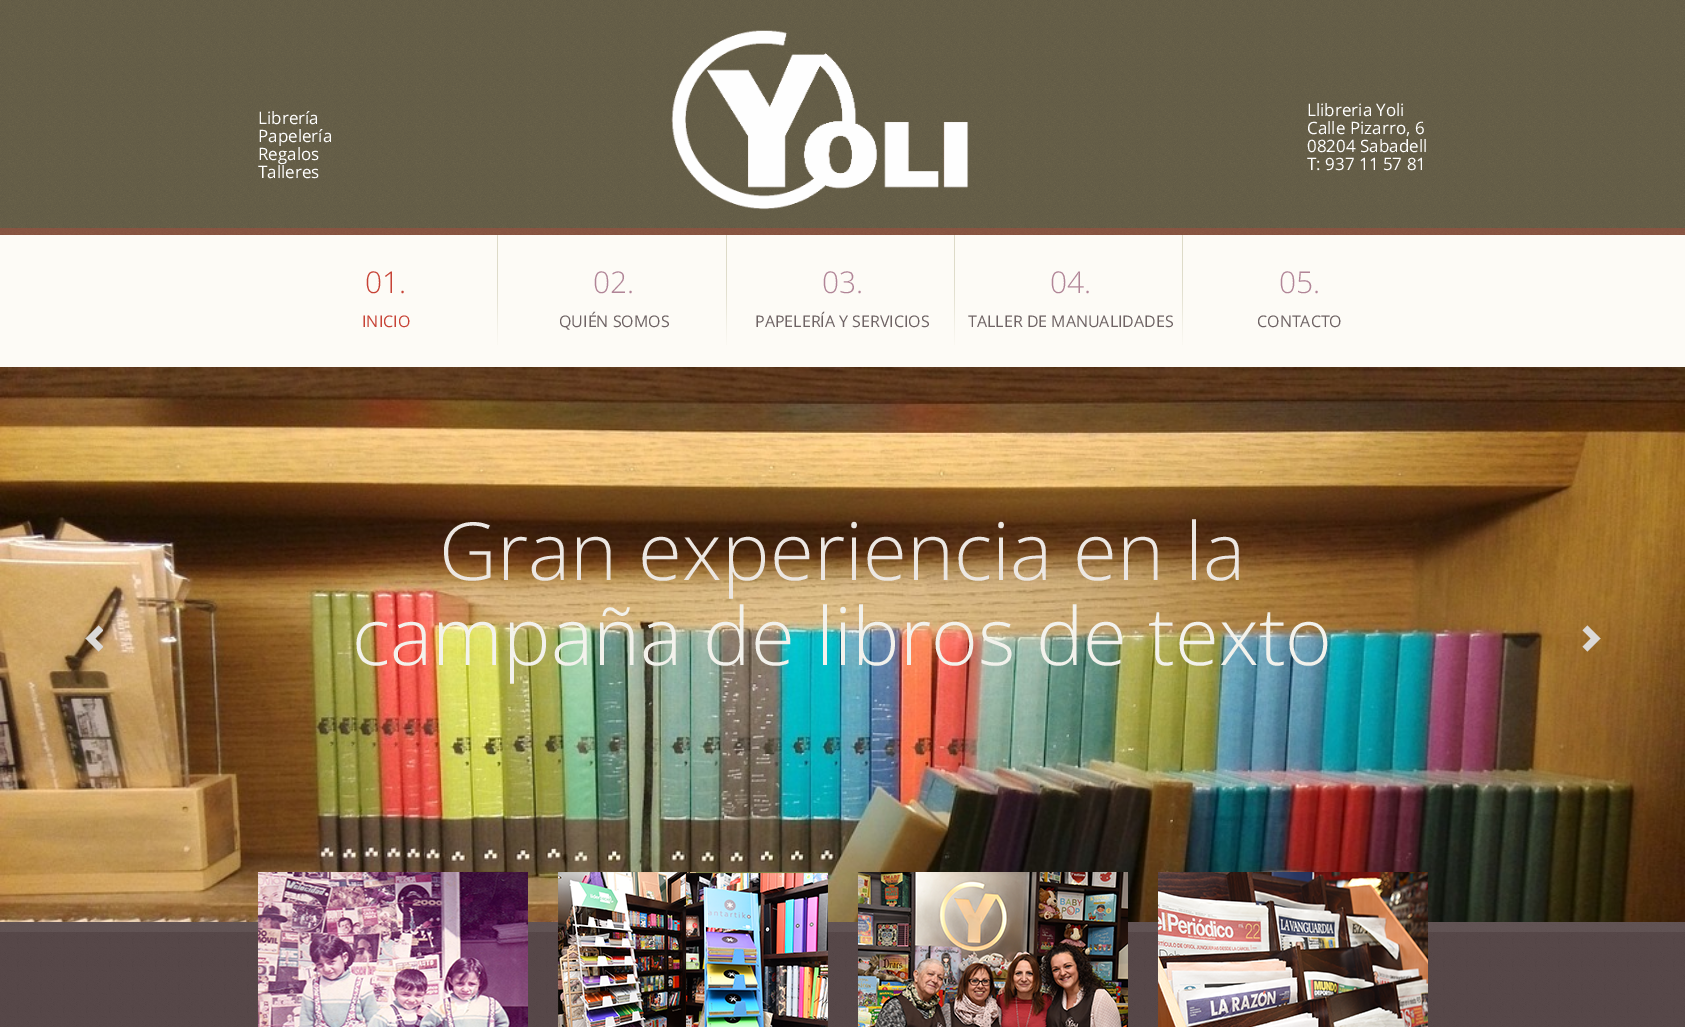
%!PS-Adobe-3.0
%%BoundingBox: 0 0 1685 1027
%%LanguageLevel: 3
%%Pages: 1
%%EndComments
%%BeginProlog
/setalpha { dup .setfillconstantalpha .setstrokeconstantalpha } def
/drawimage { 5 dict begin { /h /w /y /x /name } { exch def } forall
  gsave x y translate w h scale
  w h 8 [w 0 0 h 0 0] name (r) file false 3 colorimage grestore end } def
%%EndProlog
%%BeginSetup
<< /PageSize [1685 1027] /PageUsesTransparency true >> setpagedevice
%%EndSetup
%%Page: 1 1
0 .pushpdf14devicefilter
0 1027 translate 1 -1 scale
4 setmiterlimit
1 setgray
0 0 1685 1027 rectfill
(images/1.raw) 0 0 1685 235 drawimage
(images/2.raw) 671 30 298 180 drawimage
0.35 setalpha
0.78 0.263 0.212 setrgbcolor
0 228 1685 7 rectfill
1 setalpha
0.992 0.984 0.965 setrgbcolor
0 235 1685 132 rectfill
(images/3.raw) 497 235 1 110 drawimage
(images/3.raw) 726 235 1 110 drawimage
(images/3.raw) 954 235 1 110 drawimage
(images/3.raw) 1182 235 1 110 drawimage
(images/4.raw) 0 367 1685 555 drawimage
(images/5.raw) 85 625 18 27 drawimage
(images/6.raw) 1582 625 19 27 drawimage
(images/7.raw) 0 922 1685 105 drawimage
0.07 setalpha
0.965 setgray
0 922 1685 10 rectfill
1 setalpha
(images/8.raw) 258 872 270 155 drawimage
0.49 0.514 0.275 setrgbcolor
558 872 270 155 rectfill
(images/9.raw) 558 872 270 155 drawimage
(images/10.raw) 858 872 270 155 drawimage
(images/11.raw) 1158 872 270 155 drawimage
/OpenSans-Regular [17 0 0 -17 0 0] selectfont
1 setgray
258 124 moveto (Librería) show
258 142 moveto (Papelería) show
258 160 moveto (Regalos) show
258 178 moveto (Talleres) show
1307 116 moveto (Llibreria Yoli) show
1307 134 moveto (Calle Pizarro, 6) show
1307 152 moveto (08204 Sabadell) show
1307 170 moveto (T: 937 11 57 81) show
/OpenSans-Light [30 0 0 -30 0 0] selectfont
0.78 0.263 0.212 setrgbcolor
365 293 moveto (01.) show
/OpenSans-Regular [16 0 0 -16 0 0] selectfont
362 327 moveto (INICIO) show
/OpenSans-Light [30 0 0 -30 0 0] selectfont
0.694 0.522 0.592 setrgbcolor
593 293 moveto (02.) show
/OpenSans-Regular [16 0 0 -16 0 0] selectfont
0.431 0.388 0.392 setrgbcolor
559 327 moveto (QUIÉN SOMOS) show
/OpenSans-Light [30 0 0 -30 0 0] selectfont
0.694 0.522 0.592 setrgbcolor
822 293 moveto (03.) show
/OpenSans-Regular [16 0 0 -16 0 0] selectfont
0.431 0.388 0.392 setrgbcolor
755 327 moveto (PAPELERÍA Y SERVICIOS) show
/OpenSans-Light [30 0 0 -30 0 0] selectfont
0.694 0.522 0.592 setrgbcolor
1050 293 moveto (04.) show
/OpenSans-Regular [16 0 0 -16 0 0] selectfont
0.431 0.388 0.392 setrgbcolor
968 327 moveto (TALLER DE MANUALIDADES) show
/OpenSans-Light [30 0 0 -30 0 0] selectfont
0.694 0.522 0.592 setrgbcolor
1279 293 moveto (05.) show
/OpenSans-Regular [16 0 0 -16 0 0] selectfont
0.431 0.388 0.392 setrgbcolor
1257 327 moveto (CONTACTO) show
/OpenSans-Light [80 0 0 -80 0 0] selectfont
0.925 0.906 0.886 setrgbcolor
439 580 moveto (Gran experiencia en la) show
0.953 0.949 0.925 setrgbcolor
352 665 moveto (campaña de libros de texto) show
.poppdf14devicefilter showpage
%%EOF
